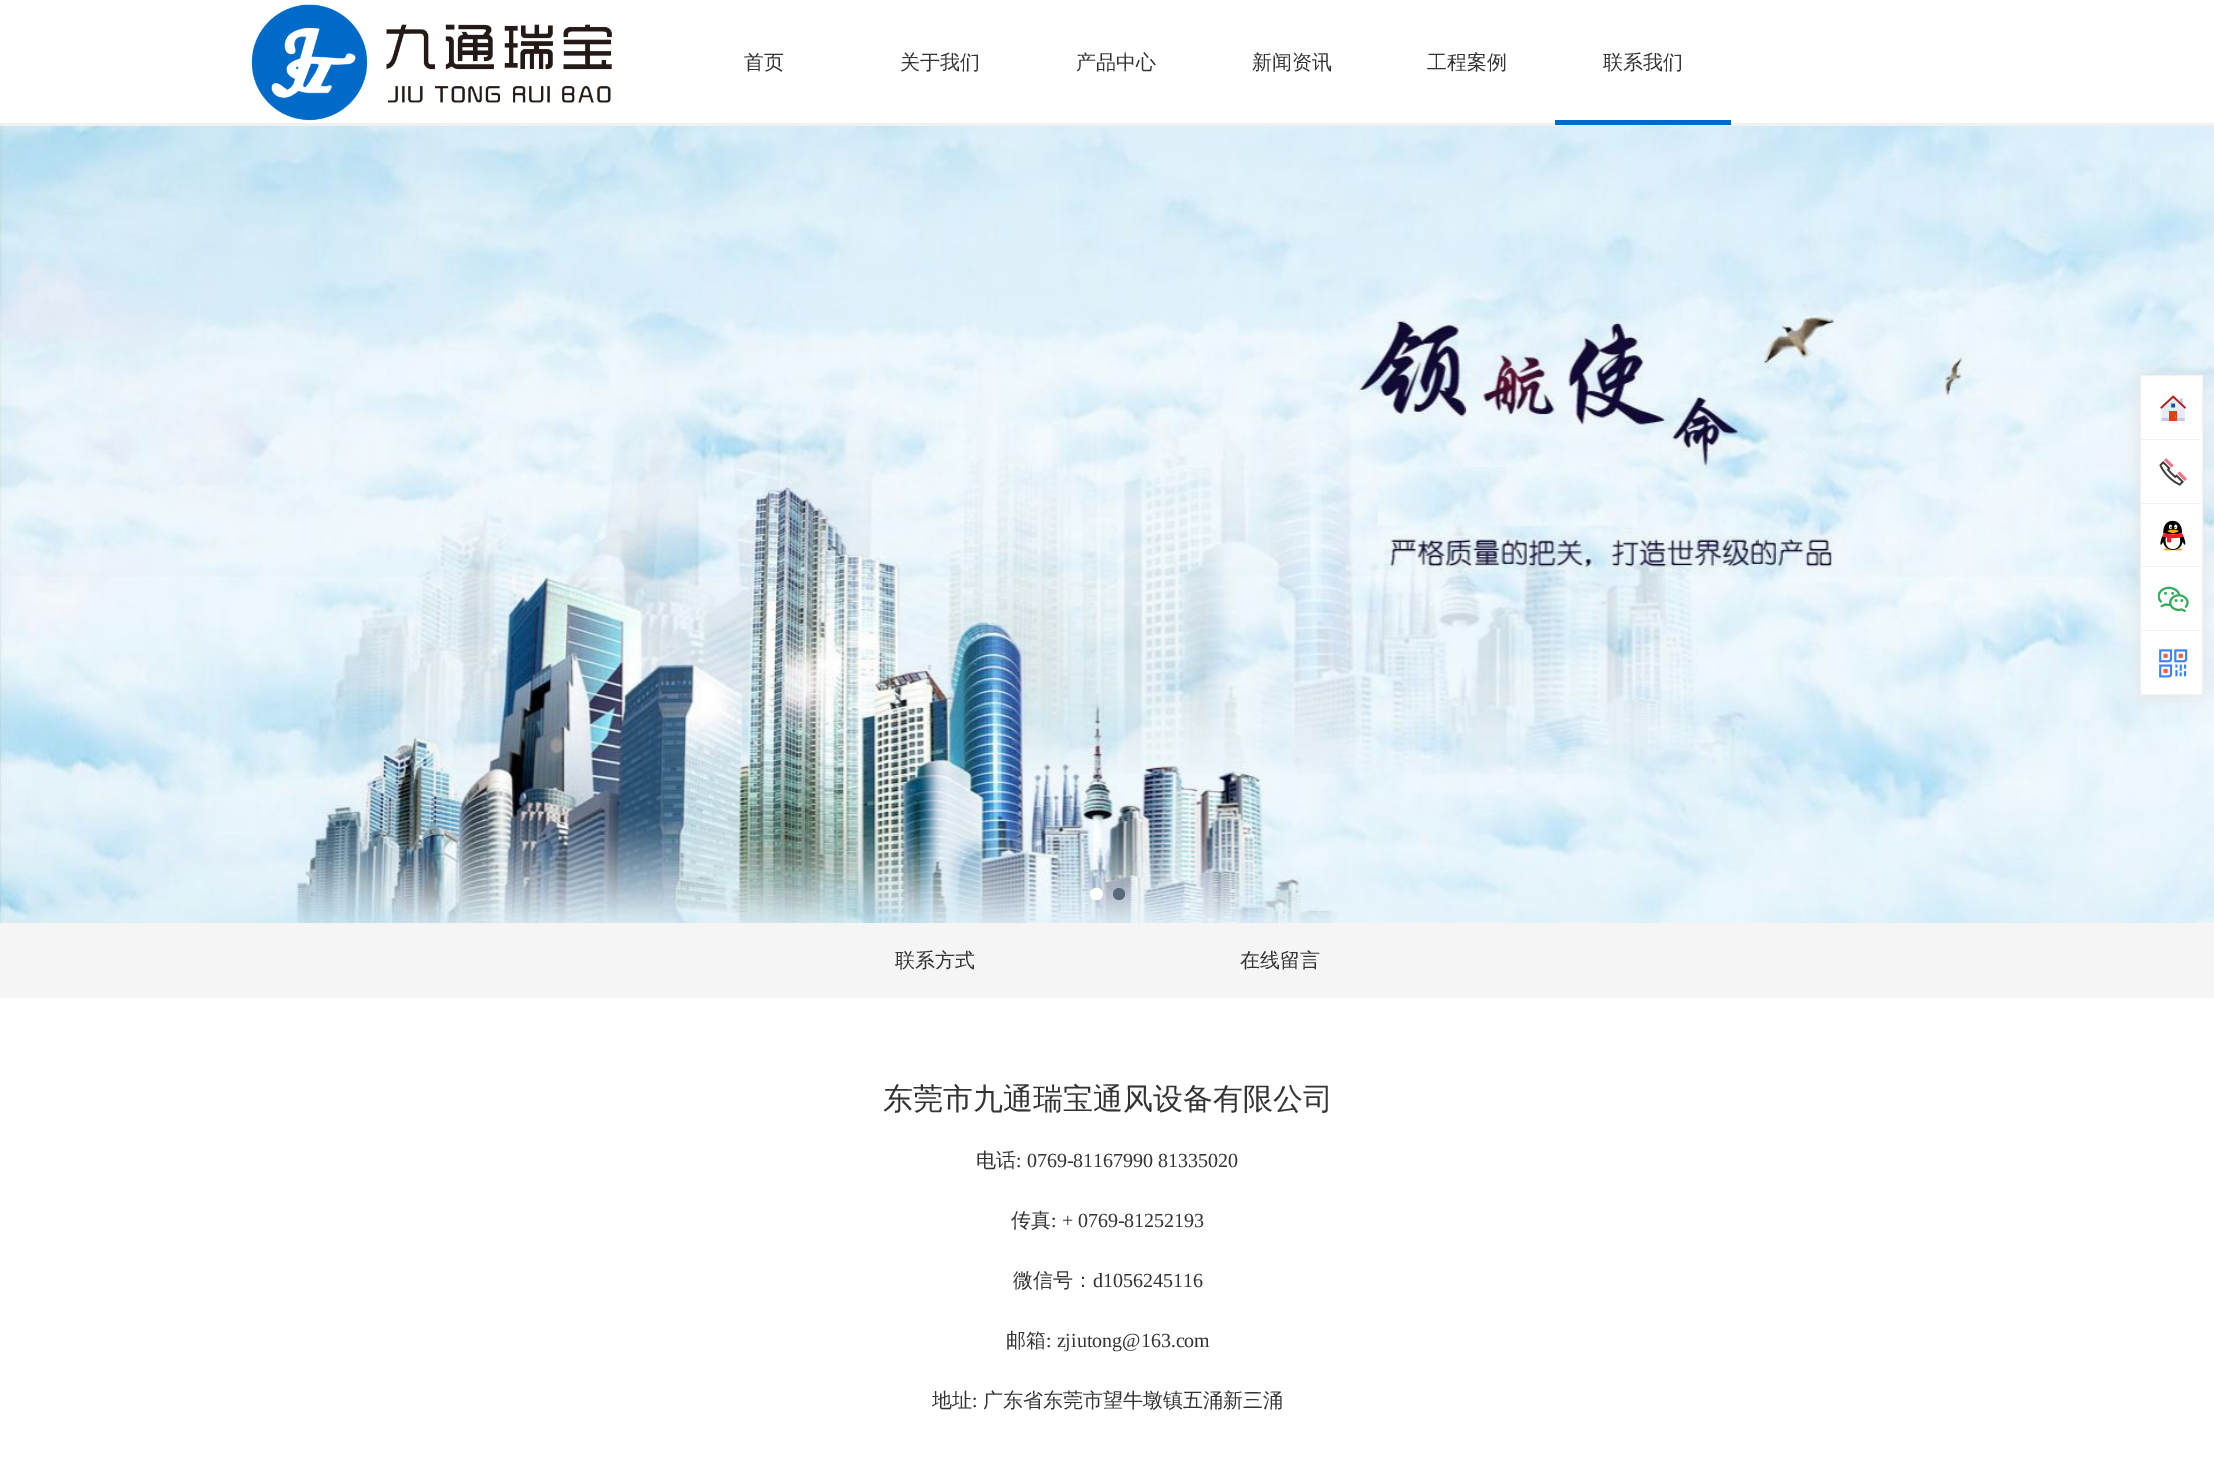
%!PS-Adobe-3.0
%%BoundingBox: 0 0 2214 1474
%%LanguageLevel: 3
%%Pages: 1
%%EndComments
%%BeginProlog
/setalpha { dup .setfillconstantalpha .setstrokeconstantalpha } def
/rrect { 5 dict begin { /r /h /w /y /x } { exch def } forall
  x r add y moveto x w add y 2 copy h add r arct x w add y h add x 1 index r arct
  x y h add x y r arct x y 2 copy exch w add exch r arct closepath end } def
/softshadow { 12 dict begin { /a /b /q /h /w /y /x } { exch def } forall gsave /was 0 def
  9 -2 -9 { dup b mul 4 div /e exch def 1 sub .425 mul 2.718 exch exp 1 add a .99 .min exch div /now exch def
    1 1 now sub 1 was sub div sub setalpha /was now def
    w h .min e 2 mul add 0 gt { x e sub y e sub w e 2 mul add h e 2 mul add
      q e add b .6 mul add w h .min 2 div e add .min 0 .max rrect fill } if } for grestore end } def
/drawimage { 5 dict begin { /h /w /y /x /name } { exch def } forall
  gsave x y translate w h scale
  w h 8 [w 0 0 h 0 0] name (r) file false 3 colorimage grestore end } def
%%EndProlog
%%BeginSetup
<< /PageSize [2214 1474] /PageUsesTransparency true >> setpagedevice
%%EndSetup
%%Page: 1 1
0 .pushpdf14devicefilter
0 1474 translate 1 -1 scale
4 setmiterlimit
1 setgray
0 0 2214 1474 rectfill
0.945 setgray
0 123 2214 3 rectfill
(images/1.raw) 251 4 361 117 drawimage
0 0.416 0.788 setrgbcolor
1555 120 176 5 rectfill
(images/2.raw) 0 126 2214 797 drawimage
1 setgray
1090 888 13 12 6 rrect fill
0.357 0.412 0.49 setrgbcolor
newpath 1119 894 6 0 360 arc closepath fill
0.961 setgray
0 923 2214 75 rectfill
0.894 setgray
2140 375 63 320 0 9.5 1 softshadow
1 setgray
newpath 2140.5 375.5 moveto 2202.5 375.5 lineto 2202.5 694.5 lineto 2140.5 694.5 lineto closepath gsave fill grestore
0.949 setgray
stroke
2141 439 60 1 rectfill
(images/3.raw) 2160 395 26 27 drawimage
2141 503 60 1 rectfill
(images/4.raw) 2159 458 28 28 drawimage
2141 566 60 1 rectfill
(images/5.raw) 2160 520 26 31 drawimage
2141 630 60 1 rectfill
(images/6.raw) 2158 586 31 26 drawimage
(images/7.raw) 2159 649 29 29 drawimage
/WenQuanYiZenHei-Medium [20 0 0 -20 0 0] selectfont
0.2 setgray
744 69 moveto (首页) show
900 69 moveto (关于我们) show
1076 69 moveto (产品中心) show
1252 69 moveto (新闻资讯) show
1427 69 moveto (工程案例) show
1603 69 moveto (联系我们) show
895 967 moveto (联系方式) show
1240 967 moveto (在线留言) show
/WenQuanYiZenHei-Medium [30 0 0 -30 0 0] selectfont
883 1109 moveto (东莞市九通瑞宝通风设备有限公司) show
/WenQuanYiZenHei-Medium [20 0 0 -20 0 0] selectfont
976 1167 moveto (电话) show
/LiberationSerif-Regular [20 0 0 -20 0 0] selectfont
1016 1167 moveto (: 0769-81167990 81335020) show
/WenQuanYiZenHei-Medium [20 0 0 -20 0 0] selectfont
1011 1227 moveto (传真) show
/LiberationSerif-Regular [20 0 0 -20 0 0] selectfont
1051 1227 moveto (: + 0769-81252193) show
/WenQuanYiZenHei-Medium [20 0 0 -20 0 0] selectfont
1013 1287 moveto (微信号：) show
/LiberationSerif-Regular [20 0 0 -20 0 0] selectfont
1093 1287 moveto (d1056245116) show
/WenQuanYiZenHei-Medium [20 0 0 -20 0 0] selectfont
1006 1347 moveto (邮箱) show
/LiberationSerif-Regular [20 0 0 -20 0 0] selectfont
1046 1347 moveto (: zjiutong@163.com) show
/WenQuanYiZenHei-Medium [20 0 0 -20 0 0] selectfont
932 1407 moveto (地址) show
/LiberationSerif-Regular [20 0 0 -20 0 0] selectfont
972 1407 moveto (:) show
/WenQuanYiZenHei-Medium [20 0 0 -20 0 0] selectfont
983 1407 moveto (广东省东莞市望牛墩镇五涌新三涌) show
.poppdf14devicefilter showpage
%%EOF
